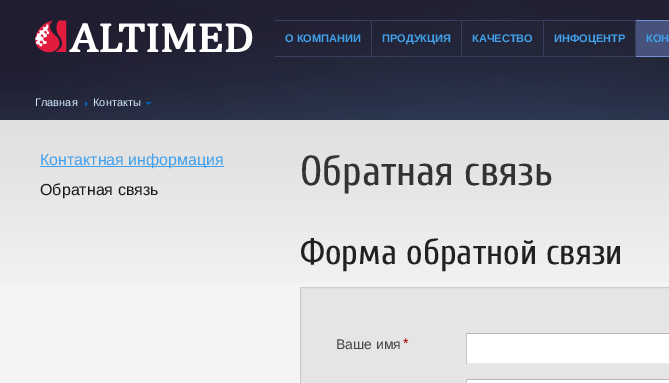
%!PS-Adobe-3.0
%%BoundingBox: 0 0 669 383
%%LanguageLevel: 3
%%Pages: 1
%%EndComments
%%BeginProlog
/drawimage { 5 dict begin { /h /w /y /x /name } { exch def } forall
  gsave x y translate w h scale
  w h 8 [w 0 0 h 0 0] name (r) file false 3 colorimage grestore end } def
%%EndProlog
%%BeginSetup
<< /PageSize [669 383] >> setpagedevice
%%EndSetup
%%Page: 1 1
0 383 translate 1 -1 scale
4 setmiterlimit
1 setgray
0 0 669 383 rectfill
(images/1.raw) 0 0 41 120 drawimage
(images/2.raw) 41 0 628 120 drawimage
(images/3.raw) 35 20 218 33 drawimage
0.224 0.239 0.369 setrgbcolor
275 20 360 1 rectfill
275 56 360 1 rectfill
371 21 1 35 rectfill
461 21 1 35 rectfill
543 21 1 35 rectfill
0.275 0.318 0.486 setrgbcolor
636 21 33 35 rectfill
0.451 0.557 0.82 setrgbcolor
635 20 34 1 rectfill
635 56 34 1 rectfill
0.224 0.239 0.369 setrgbcolor
635 20 1 37 rectfill
(images/4.raw) 85 101 3 6 drawimage
(images/5.raw) 145 102 7 3 drawimage
0.957 0.957 0.961 setrgbcolor
0 123 669 260 rectfill
(images/6.raw) 0 120 669 163 drawimage
0.259 0.631 0.918 setrgbcolor
40 166 184 1 rectfill
0.898 setgray
newpath 300.5 287.5 moveto 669.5 287.5 lineto 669.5 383.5 lineto 300.5 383.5 lineto closepath gsave fill grestore
0.8 setgray
stroke
1 setgray
467 334 202 29 rectfill
0.718 0.714 0.694 setrgbcolor
466 333 203 1 rectfill
0.918 0.918 0.894 setrgbcolor
466 363 203 1 rectfill
0.773 0.773 0.753 setrgbcolor
466 333 1 31 rectfill
1 setgray
466 380 203 3 rectfill
0.718 0.714 0.694 setrgbcolor
466 379 203 1 rectfill
0.773 0.773 0.753 setrgbcolor
466 379 1 4 rectfill
/LiberationSans-Bold [11 0 0 -11 0 0] selectfont
0.259 0.631 0.918 setrgbcolor
285 42 moveto (О КОМПАНИИ) show
382 42 moveto (ПРОДУКЦИЯ) show
472 42 moveto (КАЧЕСТВО) show
554 42 moveto (ИНФОЦЕНТР) show
646 42 moveto (КОН) show
/LiberationSans-Regular [11 0 0 -11 0 0] selectfont
0.82 0.91 1 setrgbcolor
35 106 moveto (Главная) show
93 106 moveto (Контакты) show
/LiberationSans-Regular [16 0 0 -16 0 0] selectfont
0.259 0.631 0.918 setrgbcolor
40 165 moveto (Контактная информация) show
0.114 0.098 0.086 setrgbcolor
40 195 moveto (Обратная связь) show
/Cuprum-Regular [42 0 0 -42 0 0] selectfont
0.2 setgray
300 185 moveto (Обратная связь) show
/Cuprum-Regular [36 0 0 -36 0 0] selectfont
0.129 setgray
300 264 moveto (Форма обратной связи) show
/LiberationSans-Regular [14 0 0 -14 0 0] selectfont
0.267 setgray
336 349 moveto (Ваше имя) show
0.663 0 0 setrgbcolor
403 348 moveto (*) show
showpage
%%EOF
